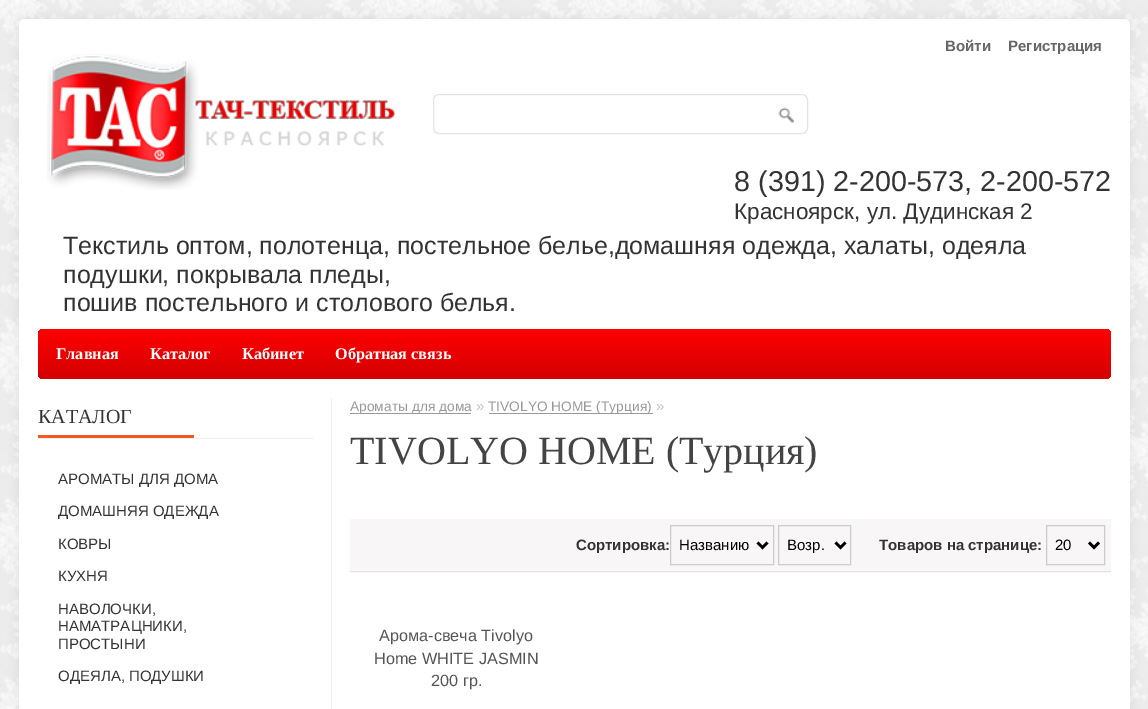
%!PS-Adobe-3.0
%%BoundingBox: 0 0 1148 709
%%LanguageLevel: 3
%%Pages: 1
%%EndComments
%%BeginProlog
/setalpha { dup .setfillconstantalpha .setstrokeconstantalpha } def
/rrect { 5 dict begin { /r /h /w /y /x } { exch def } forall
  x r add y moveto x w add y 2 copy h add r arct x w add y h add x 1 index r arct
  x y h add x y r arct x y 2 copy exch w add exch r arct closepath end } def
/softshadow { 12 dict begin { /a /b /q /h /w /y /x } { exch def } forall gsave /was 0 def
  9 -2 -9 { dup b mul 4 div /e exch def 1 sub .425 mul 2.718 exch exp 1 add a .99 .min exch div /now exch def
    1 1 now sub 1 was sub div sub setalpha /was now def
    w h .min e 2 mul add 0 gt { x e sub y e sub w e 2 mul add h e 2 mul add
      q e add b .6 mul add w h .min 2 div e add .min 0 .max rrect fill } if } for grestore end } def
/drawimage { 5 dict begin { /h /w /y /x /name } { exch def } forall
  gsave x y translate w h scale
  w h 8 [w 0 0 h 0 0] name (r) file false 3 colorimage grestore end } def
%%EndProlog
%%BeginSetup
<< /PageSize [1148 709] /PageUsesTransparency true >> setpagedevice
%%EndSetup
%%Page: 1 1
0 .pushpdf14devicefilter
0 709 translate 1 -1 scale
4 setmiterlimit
1 setgray
0 0 1148 709 rectfill
(images/1.raw) 0 0 1148 709 drawimage
0 setgray
19 19 1111 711 6 5 0.08 softshadow
1 setgray
newpath 25 19 moveto 1124 19 lineto 1127.5 19 1130 21.5 1130 25 curveto 1130 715 lineto 19 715 lineto 19 25 lineto 19 21.5 21.5 19 25 19 curveto closepath fill
(images/2.raw) 47 54 349 136 drawimage
0.894 setgray
433.5 94.5 374 39 5.5 rrect stroke
(images/3.raw) 778 107 17 16 drawimage
gsave 38 329 1073 50 6 rrect clip newpath
<< /ShadingType 2 /ColorSpace /DeviceRGB /Coords [574 379 574 329] /Extend [true true] /Function << /FunctionType 2 /Domain [0 1] /C0 [0.827 0 0] /C1 [1 0 0] /N 1 >> >> shfill grestore
0.933 setgray
331 398 1 311 rectfill
38 438 275 1 rectfill
0.945 0.353 0.137 setrgbcolor
38 435 156 3 rectfill
0.6 setgray
350 413 121 1 rectfill
489 413 164 1 rectfill
0.973 0.965 0.965 setrgbcolor
350 519 761 54 rectfill
0.894 setgray
350 571 761 1 rectfill
0.8 setgray
670.5 525.5 103 39 rectstroke
0 setgray
2.5 setlinewidth
newpath 757.5 542.5 moveto 762.5 547.5 lineto 767.5 542.5 lineto stroke
0.8 setgray
1 setlinewidth
778.5 525.5 72 39 rectstroke
0 setgray
2.5 setlinewidth
newpath 835.5 542.5 moveto 840.5 547.5 lineto 845.5 542.5 lineto stroke
0.8 setgray
1 setlinewidth
1046.5 525.5 58 39 rectstroke
0 setgray
2.5 setlinewidth
newpath 1089 542.5 moveto 1094 547.5 lineto 1099 542.5 lineto stroke
/LiberationSans-Bold [15 0 0 -15 0 0] selectfont
0.4 setgray
945 51 moveto (Войти) show
1008 51 moveto (Регистрация) show
/LiberationSans-Regular [28.75 0 0 -28.75 0 0] selectfont
0.2 setgray
734 191 moveto (8 \(391\) 2-200-573, 2-200-572) show
/LiberationSans-Regular [22.5 0 0 -22.5 0 0] selectfont
734 219 moveto (Красноярск, ул. Дудинская 2) show
/LiberationSans-Regular [25 0 0 -25 0 0] selectfont
63 254 moveto (Текстиль оптом, полотенца, постельное белье,домашняя одежда, халаты, одеяла) show
63 283 moveto (подушки, покрывала пледы,) show
63 311 moveto (пошив постельного и столового белья.) show
/LiberationSerif-Bold [16.25 0 0 -16.25 0 0] selectfont
1 setgray
56 359 moveto (Главная) show
150 359 moveto (Каталог) show
242 359 moveto (Кабинет) show
335 359 moveto (Обратная связь) show
/LiberationSerif-Regular [20 0 0 -20 0 0] selectfont
0.2 setgray
38 423 moveto (КАТАЛОГ) show
/LiberationSans-Regular [15 0 0 -15 0 0] selectfont
58 484 moveto (АРОМАТЫ ДЛЯ ДОМА) show
58 516 moveto (ДОМАШНЯЯ ОДЕЖДА) show
58 549 moveto (КОВРЫ) show
58 581 moveto (КУХНЯ) show
58 614 moveto (НАВОЛОЧКИ,) show
58 631 moveto (НАМАТРАЦНИКИ,) show
58 649 moveto (ПРОСТЫНИ) show
58 681 moveto (ОДЕЯЛА, ПОДУШКИ) show
/LiberationSans-Regular [13.75 0 0 -13.75 0 0] selectfont
0.6 setgray
350 411 moveto (Ароматы для дома) show
/LiberationSans-Regular [15 0 0 -15 0 0] selectfont
0.761 setgray
476 411 moveto (») show
/LiberationSans-Regular [13.75 0 0 -13.75 0 0] selectfont
0.6 setgray
488 411 moveto (TIVOLYO HOME \(Турция\)) show
/LiberationSans-Regular [15 0 0 -15 0 0] selectfont
0.761 setgray
656 411 moveto (») show
/LiberationSerif-Regular [40 0 0 -40 0 0] selectfont
0.267 setgray
350 464 moveto (TIVOLYO HOME \(Турция\)) show
/LiberationSans-Bold [15 0 0 -15 0 0] selectfont
0.2 setgray
576 550 moveto (Сортировка:) show
/LiberationSans-Regular [15 0 0 -15 0 0] selectfont
0 setgray
679 550 moveto (Названию) show
787 550 moveto (Возр.) show
/LiberationSans-Bold [15 0 0 -15 0 0] selectfont
0.2 setgray
879 550 moveto (Товаров на странице:) show
/LiberationSans-Regular [15 0 0 -15 0 0] selectfont
0 setgray
1055 550 moveto (20) show
/LiberationSans-Regular [16.25 0 0 -16.25 0 0] selectfont
0.333 setgray
379 641 moveto (Арома-свеча Tivolyo) show
374 664 moveto (Home WHITE JASMIN) show
431 686 moveto (200 гр.) show
.poppdf14devicefilter showpage
%%EOF
